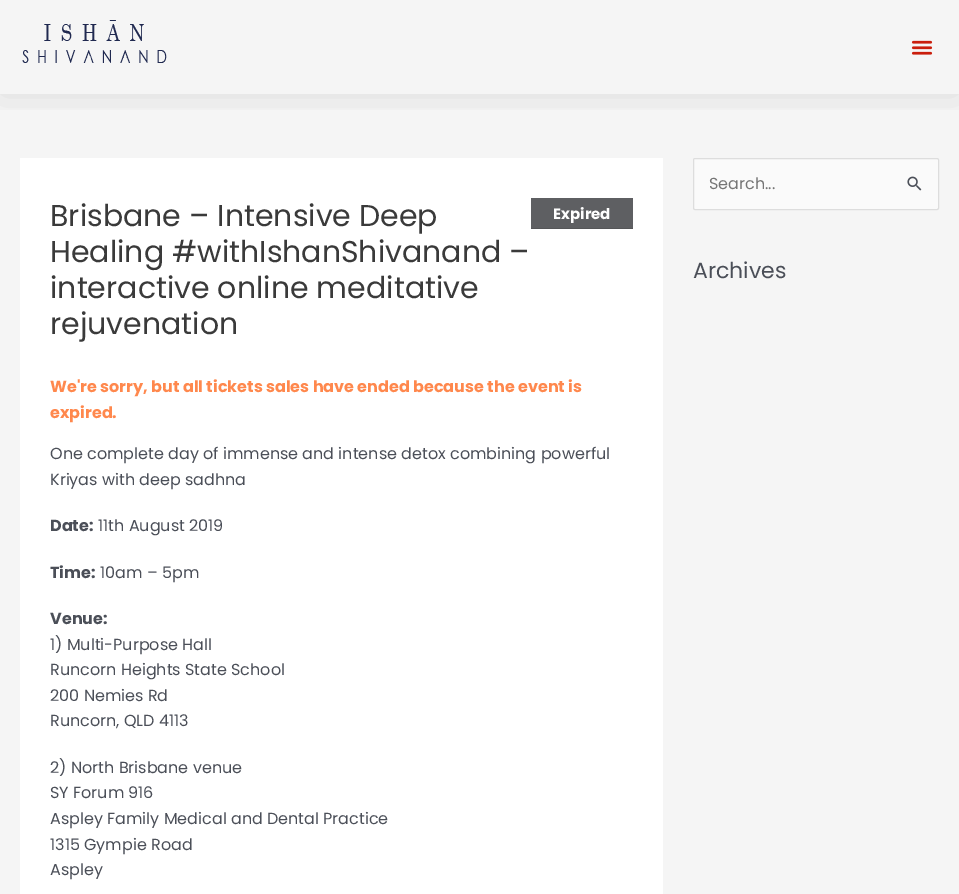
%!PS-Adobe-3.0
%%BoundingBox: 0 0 959 894
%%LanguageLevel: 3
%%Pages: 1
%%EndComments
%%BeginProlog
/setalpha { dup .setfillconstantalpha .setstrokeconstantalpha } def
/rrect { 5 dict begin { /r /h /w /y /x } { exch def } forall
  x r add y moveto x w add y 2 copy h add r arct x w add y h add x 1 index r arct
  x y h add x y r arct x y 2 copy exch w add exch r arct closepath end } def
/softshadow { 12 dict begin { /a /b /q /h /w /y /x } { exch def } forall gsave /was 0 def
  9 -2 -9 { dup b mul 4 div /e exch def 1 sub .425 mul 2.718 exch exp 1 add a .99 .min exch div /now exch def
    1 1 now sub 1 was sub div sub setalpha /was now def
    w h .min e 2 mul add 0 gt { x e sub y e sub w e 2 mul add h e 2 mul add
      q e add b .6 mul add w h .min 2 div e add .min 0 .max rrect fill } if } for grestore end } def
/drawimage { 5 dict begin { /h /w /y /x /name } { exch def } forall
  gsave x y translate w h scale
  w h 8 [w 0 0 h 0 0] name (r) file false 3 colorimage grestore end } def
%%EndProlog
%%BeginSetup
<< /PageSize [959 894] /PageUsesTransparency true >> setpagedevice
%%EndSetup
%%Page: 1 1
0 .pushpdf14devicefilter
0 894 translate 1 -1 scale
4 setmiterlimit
0.961 setgray
0 0 959 894 rectfill
gsave
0 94 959 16 rectclip
0 setgray
0 0 959 94 0 19 0.1 softshadow
grestore
(images/1.raw) 22 20 145 43 drawimage
(images/2.raw) 911 40 22 15 drawimage
1 setgray
20 158 643 736 rectfill
0.369 0.373 0.384 setrgbcolor
531 198 102 30 rectfill
0.333 0.337 0.345 setrgbcolor
531 228 102 1 rectfill
0.98 setgray
693.5 158.5 245 51 1.5 rrect gsave fill grestore
0.867 setgray
stroke
(images/3.raw) 907 176 15 15 drawimage
/Poppins-Regular [30 0 0 -30 0 0] selectfont
0.227 setgray
50 226 moveto (Brisbane – Intensive Deep) show
/Poppins-Bold [15 0 0 -15 0 0] selectfont
1 setgray
553 219 moveto (Expired) show
/Poppins-Regular [30 0 0 -30 0 0] selectfont
0.227 setgray
50 262 moveto (Healing #withIshanShivanand –) show
50 298 moveto (interactive online meditative) show
50 334 moveto (rejuvenation) show
/Poppins-Bold [16 0 0 -16 0 0] selectfont
1 0.533 0.302 setrgbcolor
50 392 moveto (We're sorry, but all tickets sales have ended because the event is) show
50 418 moveto (expired.) show
/Poppins-Regular [16 0 0 -16 0 0] selectfont
0.294 0.31 0.345 setrgbcolor
50 459 moveto (One complete day of immense and intense detox combining powerful) show
50 485 moveto (Kriyas with deep sadhna) show
/Poppins-Bold [16 0 0 -16 0 0] selectfont
50 531 moveto (Date:) show
/Poppins-Regular [16 0 0 -16 0 0] selectfont
98 531 moveto (11th August 2019) show
/Poppins-Bold [16 0 0 -16 0 0] selectfont
50 578 moveto (Time:) show
/Poppins-Regular [16 0 0 -16 0 0] selectfont
100 578 moveto (10am – 5pm) show
/Poppins-Bold [16 0 0 -16 0 0] selectfont
50 624 moveto (Venue:) show
/Poppins-Regular [16 0 0 -16 0 0] selectfont
50 650 moveto (1\) Multi-Purpose Hall) show
50 675 moveto (Runcorn Heights State School) show
50 701 moveto (200 Nemies Rd) show
50 726 moveto (Runcorn, QLD 4113) show
50 773 moveto (2\) North Brisbane venue) show
50 798 moveto (SY Forum 916) show
50 824 moveto (Aspley Family Medical and Dental Practice) show
50 850 moveto (1315 Gympie Road) show
50 875 moveto (Aspley) show
0.459 setgray
709 189 moveto (Search...) show
/Poppins-Regular [22 0 0 -22 0 0] selectfont
0.294 0.31 0.345 setrgbcolor
693 278 moveto (Archives) show
.poppdf14devicefilter showpage
%%EOF
